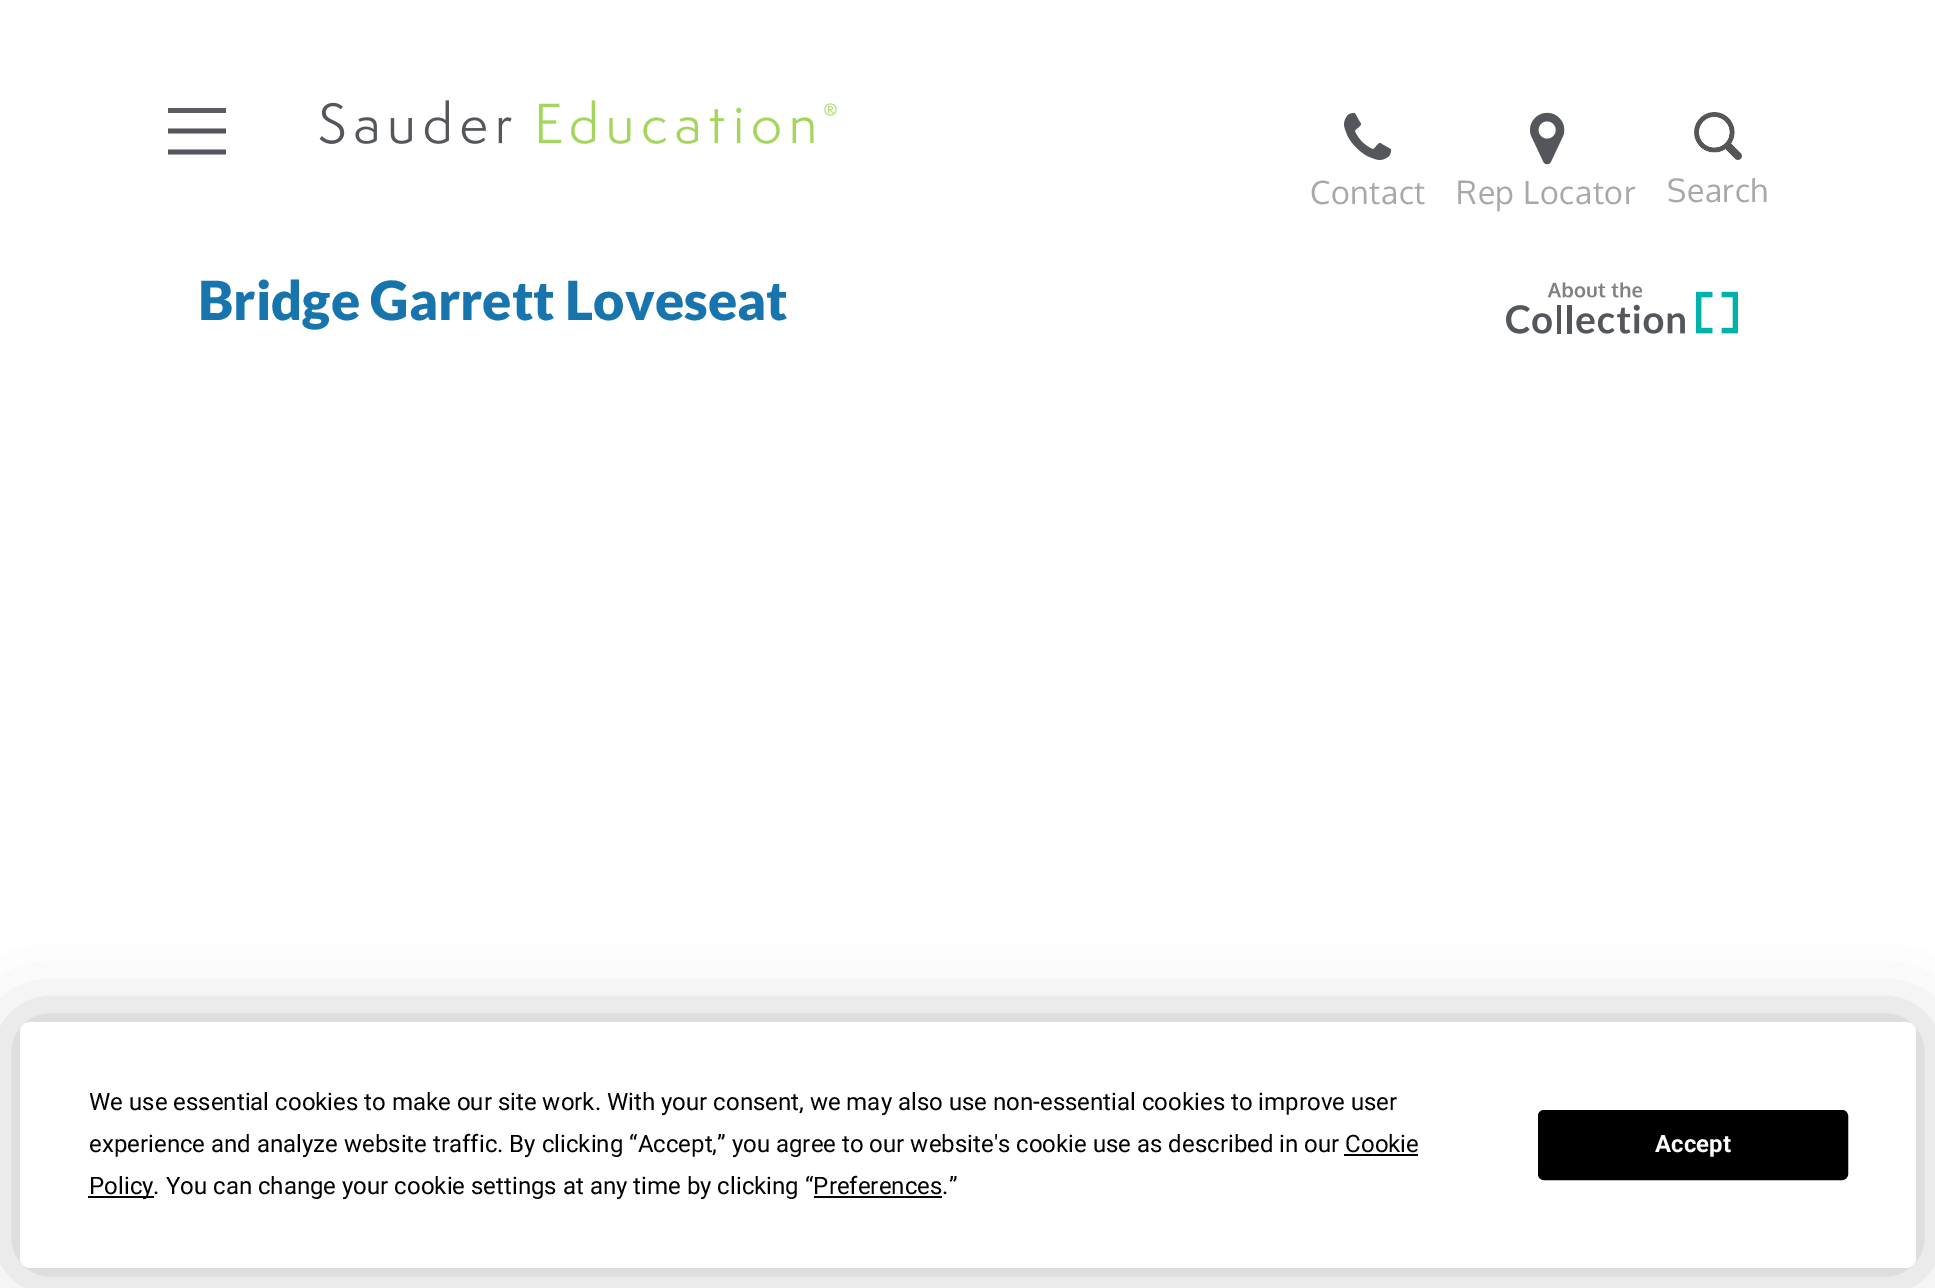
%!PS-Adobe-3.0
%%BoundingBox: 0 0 1935 1288
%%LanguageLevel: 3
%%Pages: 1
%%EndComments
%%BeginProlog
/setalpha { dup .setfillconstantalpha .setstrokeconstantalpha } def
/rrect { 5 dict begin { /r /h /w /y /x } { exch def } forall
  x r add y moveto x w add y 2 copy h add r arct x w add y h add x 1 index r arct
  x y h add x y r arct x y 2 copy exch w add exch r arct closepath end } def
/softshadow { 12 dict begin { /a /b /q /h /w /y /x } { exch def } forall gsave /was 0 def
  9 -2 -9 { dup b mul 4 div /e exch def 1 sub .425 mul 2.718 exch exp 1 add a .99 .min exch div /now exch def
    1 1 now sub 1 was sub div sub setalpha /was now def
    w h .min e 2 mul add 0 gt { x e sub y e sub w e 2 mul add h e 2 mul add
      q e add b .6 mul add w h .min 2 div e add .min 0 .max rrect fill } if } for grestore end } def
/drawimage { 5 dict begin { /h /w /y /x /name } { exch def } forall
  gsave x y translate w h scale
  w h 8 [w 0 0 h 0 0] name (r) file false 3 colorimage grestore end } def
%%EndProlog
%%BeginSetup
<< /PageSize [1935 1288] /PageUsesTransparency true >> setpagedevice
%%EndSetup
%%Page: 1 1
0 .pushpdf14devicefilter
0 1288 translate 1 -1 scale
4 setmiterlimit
1 setgray
0 0 1935 1288 rectfill
0.353 0.365 0.38 setrgbcolor
168 108 58 5 rectfill
0.325 0.337 0.353 setrgbcolor
4.8 setlinewidth
newpath 168 131 moveto 226 131 lineto 168 152 moveto 226 152 lineto stroke
(images/1.raw) 319 100 518 44 drawimage
(images/2.raw) 1344 112 48 48 drawimage
(images/3.raw) 1530 112 35 53 drawimage
(images/4.raw) 1694 112 48 48 drawimage
(images/5.raw) 1506 282 232 52 drawimage
0 setgray
20 1022 1896 246 10 35 0.25 softshadow
1 setgray
20 1022 1896 246 10 rrect fill
0 setgray
1344 1154 74 2 rectfill
88 1196 66 2 rectfill
814 1196 128 2 rectfill
1539 1111 308 68 5 rrect gsave fill grestore
2 setlinewidth
stroke
/Oxygen-Regular [32 0 0 -32 0 0] selectfont
0.655 0.659 0.667 setrgbcolor
1310 204 moveto 0.6 0 (Contact) ashow
1456 204 moveto 0.6 0 (Rep Locator) ashow
1667 202 moveto 0.6 0 (Search) ashow
/Lato-Black [54 0 0 -54 0 0] selectfont
0.09 0.455 0.675 setrgbcolor
198 320 moveto (Bridge Garrett Loveseat) show
/Roboto-Regular [24 0 0 -24 0 0] selectfont
0 setgray
89 1110 moveto (We use essential cookies to make our site work. With your consent, we may also use non-essential cookies to improve user) show
89 1152 moveto (experience and analyze website traffic. By clicking “Accept,” you agree to our website's cookie use as described in our Cookie) show
89 1194 moveto (Policy. You can change your cookie settings at any time by clicking “Preferences.”) show
/Roboto-Bold [24 0 0 -24 0 0] selectfont
1 setgray
1655 1152 moveto (Accept) show
.poppdf14devicefilter showpage
%%EOF
